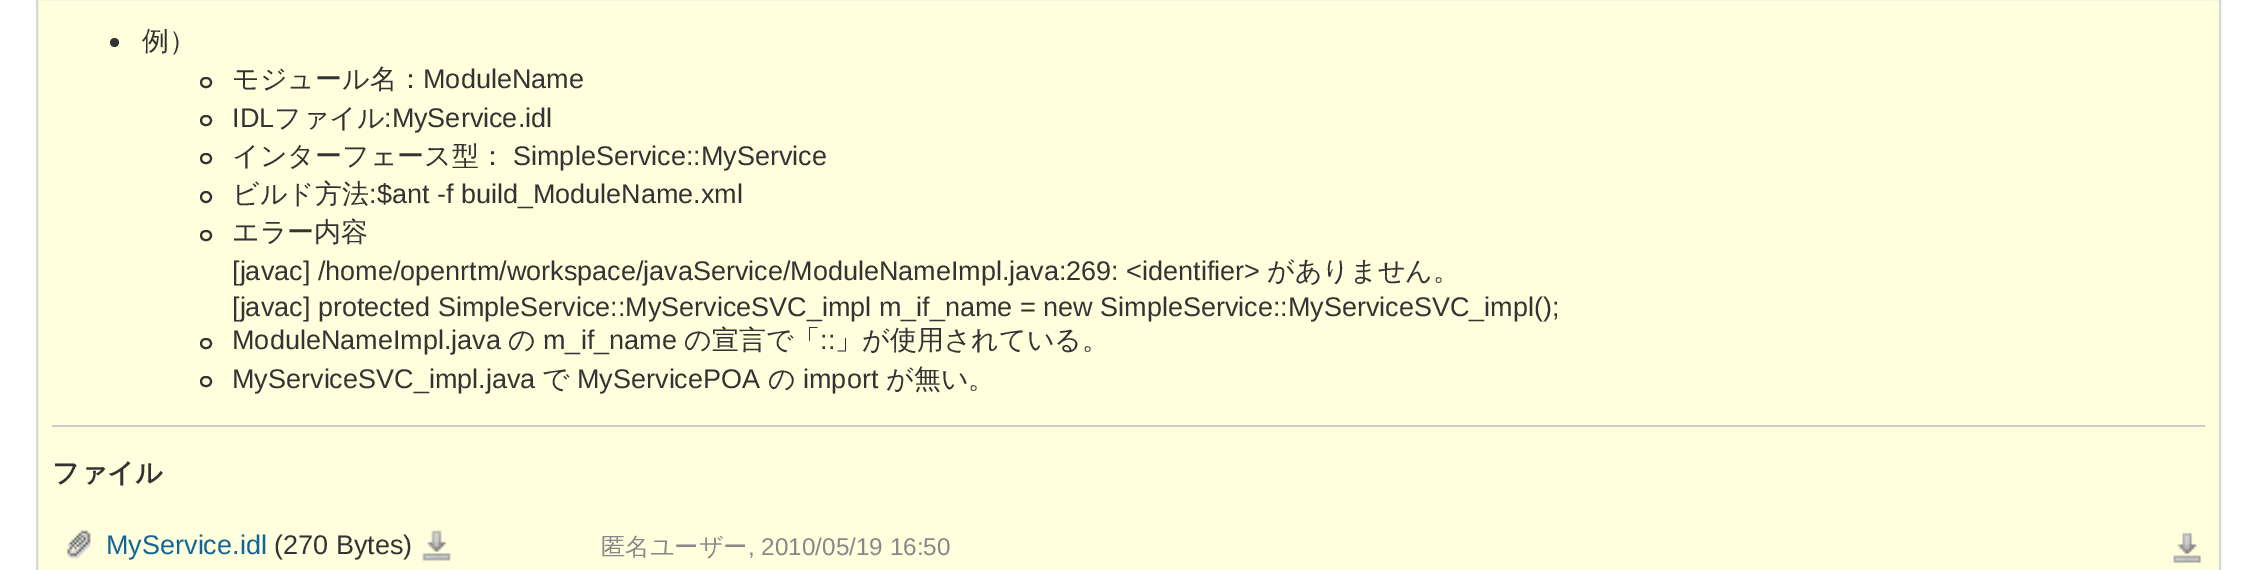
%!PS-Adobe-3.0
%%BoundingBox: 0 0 2256 570
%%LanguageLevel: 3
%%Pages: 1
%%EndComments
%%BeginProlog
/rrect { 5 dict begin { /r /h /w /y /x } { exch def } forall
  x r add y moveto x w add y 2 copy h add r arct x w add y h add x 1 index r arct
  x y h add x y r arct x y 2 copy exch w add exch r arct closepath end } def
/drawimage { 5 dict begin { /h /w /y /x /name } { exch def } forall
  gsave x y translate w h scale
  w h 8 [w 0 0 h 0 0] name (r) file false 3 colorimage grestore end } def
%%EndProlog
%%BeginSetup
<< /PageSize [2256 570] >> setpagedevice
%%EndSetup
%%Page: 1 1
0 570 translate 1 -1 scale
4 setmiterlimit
1 setgray
0 0 2256 570 rectfill
1 1 0.867 setrgbcolor
newpath 37 -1 moveto 2220 -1 lineto 2220 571 lineto 37 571 lineto closepath gsave fill grestore
0.843 setgray
2 setlinewidth
stroke
0.2 setgray
newpath 114.5 42.5 4.5 0 360 arc closepath fill
201 78 10 9 4.5 rrect stroke
201 116 10 9 4.5 rrect stroke
201 154 10 9 4.5 rrect stroke
newpath 206 197 5 0 360 arc closepath stroke
201 231 10 9 4.5 rrect stroke
201 339 10 9 4.5 rrect stroke
201 377 10 9 4.5 rrect stroke
0.8 setgray
52 425 2153 2 rectfill
(images/1.raw) 67 530 24 29 drawimage
(images/2.raw) 422 530 29 31 drawimage
(images/3.raw) 2173 532 29 32 drawimage
/WenQuanYiZenHei-Medium [27 0 0 -27 0 0] selectfont
0.2 setgray
142 50 moveto (例）) show
232 88 moveto (モジュール名：) show
/LiberationSans-Regular [27 0 0 -27 0 0] selectfont
423 88 moveto (ModuleName) show
232 127 moveto (IDL) show
/WenQuanYiZenHei-Medium [27 0 0 -27 0 0] selectfont
274 127 moveto (ファイル) show
/LiberationSans-Regular [27 0 0 -27 0 0] selectfont
384 127 moveto (:MyService.idl) show
/WenQuanYiZenHei-Medium [27 0 0 -27 0 0] selectfont
232 165 moveto (インターフェース型：) show
/LiberationSans-Regular [27 0 0 -27 0 0] selectfont
513 165 moveto (SimpleService::MyService) show
/WenQuanYiZenHei-Medium [27 0 0 -27 0 0] selectfont
232 203 moveto (ビルド方法) show
/LiberationSans-Regular [27 0 0 -27 0 0] selectfont
369 203 moveto (:$ant -f build_ModuleName.xml) show
/WenQuanYiZenHei-Medium [27 0 0 -27 0 0] selectfont
232 241 moveto (エラー内容) show
/LiberationSans-Regular [27 0 0 -27 0 0] selectfont
232 280 moveto ([javac] /home/openrtm/workspace/javaService/ModuleNameImpl.java:269: <identifier>) show
/WenQuanYiZenHei-Medium [27 0 0 -27 0 0] selectfont
1267 280 moveto (がありません。) show
/LiberationSans-Regular [27 0 0 -27 0 0] selectfont
232 316 moveto ([javac] protected SimpleService::MyServiceSVC_impl m_if_name = new SimpleService::MyServiceSVC_impl\(\);) show
232 349 moveto (ModuleNameImpl.java) show
/WenQuanYiZenHei-Medium [27 0 0 -27 0 0] selectfont
508 349 moveto (の) show
/LiberationSans-Regular [27 0 0 -27 0 0] selectfont
543 349 moveto (m_if_name) show
/WenQuanYiZenHei-Medium [27 0 0 -27 0 0] selectfont
684 349 moveto (の宣言で「) show
/LiberationSans-Regular [27 0 0 -27 0 0] selectfont
820 349 moveto (::) show
/WenQuanYiZenHei-Medium [27 0 0 -27 0 0] selectfont
835 349 moveto (」が使用されている。) show
/LiberationSans-Regular [27 0 0 -27 0 0] selectfont
232 388 moveto (MyServiceSVC_impl.java) show
/WenQuanYiZenHei-Medium [27 0 0 -27 0 0] selectfont
542 388 moveto (で) show
/LiberationSans-Regular [27 0 0 -27 0 0] selectfont
577 388 moveto (MyServicePOA) show
/WenQuanYiZenHei-Medium [27 0 0 -27 0 0] selectfont
768 388 moveto (の) show
/LiberationSans-Regular [27 0 0 -27 0 0] selectfont
803 388 moveto (import) show
/WenQuanYiZenHei-Medium [27 0 0 -27 0 0] selectfont
886 388 moveto (が無い。) show
/WenQuanYiZenHei-Bold [27 0 0 -27 0 0] selectfont
52 482 moveto (ファイル) show
/LiberationSans-Regular [27 0 0 -27 0 0] selectfont
0.067 0.4 0.6 setrgbcolor
106 554 moveto (MyService.idl) show
0.2 setgray
274 554 moveto (\(270 Bytes\)) show
/WenQuanYiZenHei-Medium [24.25 0 0 -24.25 0 0] selectfont
0.533 setgray
601 555 moveto (匿名ユーザー) show
/LiberationSans-Regular [24.25 0 0 -24.25 0 0] selectfont
748 555 moveto (, 2010/05/19 16:50) show
showpage
%%EOF
